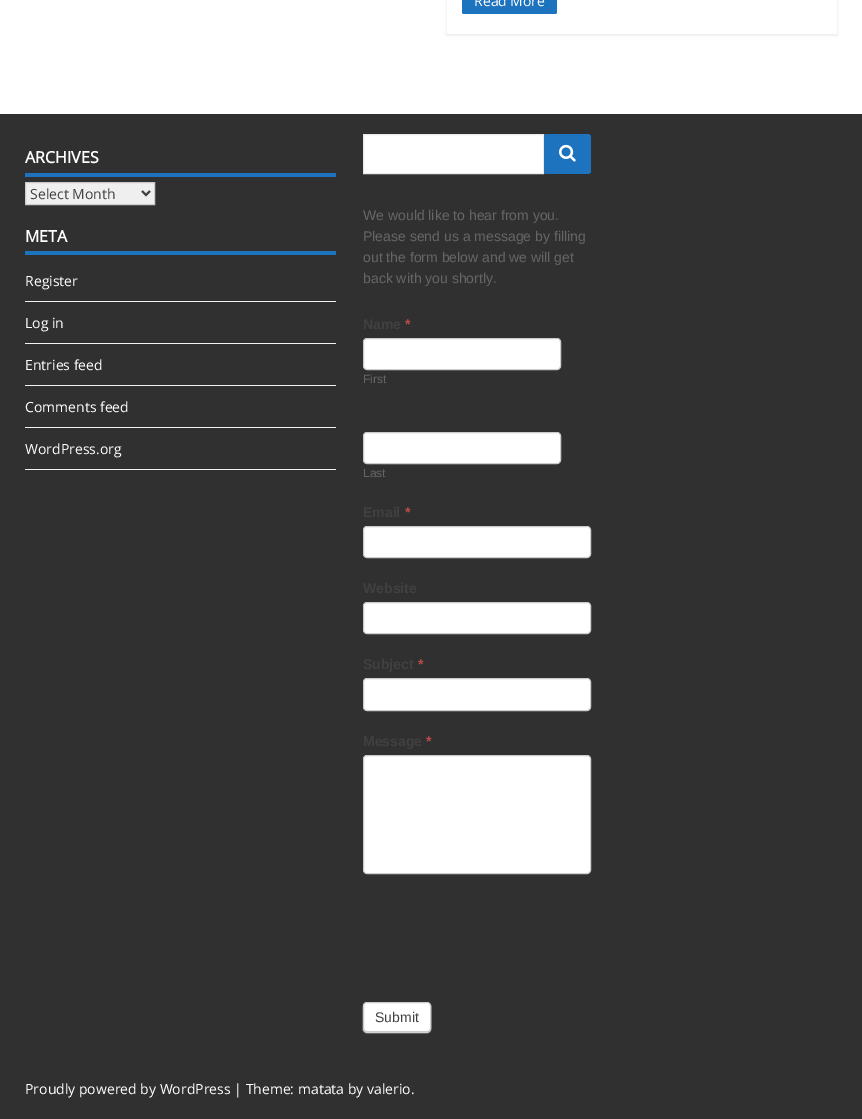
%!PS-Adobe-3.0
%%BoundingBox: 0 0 862 1119
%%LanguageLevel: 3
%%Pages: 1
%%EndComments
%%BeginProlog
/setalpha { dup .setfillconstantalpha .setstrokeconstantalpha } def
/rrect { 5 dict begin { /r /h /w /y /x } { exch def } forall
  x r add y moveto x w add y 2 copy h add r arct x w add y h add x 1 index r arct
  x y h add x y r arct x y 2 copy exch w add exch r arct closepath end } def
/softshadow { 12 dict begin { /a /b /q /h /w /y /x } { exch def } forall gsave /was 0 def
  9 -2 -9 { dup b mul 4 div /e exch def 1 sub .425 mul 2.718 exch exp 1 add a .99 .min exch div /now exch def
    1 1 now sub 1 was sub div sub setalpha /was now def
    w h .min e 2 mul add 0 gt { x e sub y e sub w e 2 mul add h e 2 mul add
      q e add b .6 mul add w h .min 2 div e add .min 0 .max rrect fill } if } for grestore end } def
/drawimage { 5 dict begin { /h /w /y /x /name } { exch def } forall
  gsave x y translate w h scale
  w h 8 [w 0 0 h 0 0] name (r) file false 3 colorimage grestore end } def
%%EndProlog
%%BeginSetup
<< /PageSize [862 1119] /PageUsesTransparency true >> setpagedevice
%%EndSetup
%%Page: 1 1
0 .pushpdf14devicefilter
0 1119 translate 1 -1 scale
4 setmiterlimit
1 setgray
0 0 862 1119 rectfill
gsave
newpath 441 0 moveto 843 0 lineto 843 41 lineto 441 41 lineto closepath 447 -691 moveto 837 -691 lineto 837 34 lineto 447 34 lineto closepath eoclip newpath
0 setgray
447 -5 390 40 0 1.5 0.1 softshadow
grestore
0.118 0.451 0.745 setrgbcolor
462 -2 95 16 2 rrect fill
0.188 setgray
0 114 862 1005 rectfill
0.118 0.451 0.745 setrgbcolor
25 173 311 4 rectfill
0.937 setgray
newpath 25.5 182.5 moveto 154.5 182.5 lineto 154.5 204.5 lineto 25.5 204.5 lineto closepath gsave fill grestore
0.8 setgray
stroke
0.251 setgray
2 setlinewidth
newpath 142 191 moveto 146 195 lineto 150 191 lineto stroke
0.118 0.451 0.745 setrgbcolor
25 251 311 4 rectfill
0.949 setgray
25 301 311 1 rectfill
25 343 311 1 rectfill
25 385 311 1 rectfill
25 427 311 1 rectfill
25 469 311 1 rectfill
1 setgray
newpath 363.5 134.5 moveto 543.5 134.5 lineto 543.5 173.5 lineto 363.5 173.5 lineto closepath gsave fill grestore
0.918 setgray
1 setlinewidth
stroke
0.118 0.451 0.745 setrgbcolor
544 134 47 40 3 rrect fill
(images/1.raw) 559 144 17 18 drawimage
1 setgray
363.5 338.5 197 31 3.5 rrect gsave fill grestore
0.8 setgray
stroke
1 setgray
363.5 432.5 197 31 3.5 rrect gsave fill grestore
0.8 setgray
stroke
1 setgray
363.5 526.5 227 31 3.5 rrect gsave fill grestore
0.8 setgray
stroke
1 setgray
363.5 602.5 227 31 3.5 rrect gsave fill grestore
0.8 setgray
stroke
1 setgray
363.5 678.5 227 32 3.5 rrect gsave fill grestore
0.8 setgray
stroke
1 setgray
363.5 755.5 227 118 3.5 rrect gsave fill grestore
0.8 setgray
stroke
0.933 setgray
363 1003 68 30 4 0.5 1 softshadow
1 setgray
363.5 1002.5 67 29 3.5 rrect gsave fill grestore
0.8 setgray
stroke
/OpenSans-Regular [14 0 0 -14 0 0] selectfont
1 setgray
474 6 moveto (Read More) show
/OpenSans-Bold [16 0 0 -16 0 0] selectfont
25 163 moveto (ARCHIVES) show
/OpenSans-Regular [14 0 0 -14 0 0] selectfont
0.251 setgray
30 199 moveto (Select Month) show
/OpenSans-Bold [16 0 0 -16 0 0] selectfont
1 setgray
25 242 moveto (META) show
/OpenSans-Regular [14 0 0 -14 0 0] selectfont
25 286 moveto (Register) show
25 328 moveto (Log in) show
25 370 moveto (Entries feed) show
25 412 moveto (Comments feed) show
25 454 moveto (WordPress.org) show
/LiberationSans-Regular [14 0 0 -14 0 0] selectfont
0.4 setgray
363 220 moveto (We would like to hear from you.) show
363 241 moveto (Please send us a message by filling) show
363 262 moveto (out the form below and we will get) show
363 283 moveto (back with you shortly.) show
/LiberationSans-Bold [14 0 0 -14 0 0] selectfont
0.251 setgray
363 329 moveto (Name) show
0.725 0.29 0.282 setrgbcolor
405 329 moveto (*) show
/LiberationSans-Regular [12 0 0 -12 0 0] selectfont
0.4 setgray
363 383 moveto (First) show
363 477 moveto (Last) show
/LiberationSans-Bold [14 0 0 -14 0 0] selectfont
0.251 setgray
363 517 moveto (Email) show
0.725 0.29 0.282 setrgbcolor
405 517 moveto (*) show
0.251 setgray
363 593 moveto (Website) show
363 669 moveto (Subject) show
0.725 0.29 0.282 setrgbcolor
418 669 moveto (*) show
0.251 setgray
363 746 moveto (Message) show
0.725 0.29 0.282 setrgbcolor
426 746 moveto (*) show
/LiberationSans-Regular [14 0 0 -14 0 0] selectfont
0.251 setgray
375 1022 moveto (Submit) show
/OpenSans-Regular [14 0 0 -14 0 0] selectfont
1 setgray
25 1094 moveto (Proudly powered by WordPress | Theme: matata by valerio.) show
.poppdf14devicefilter showpage
%%EOF
